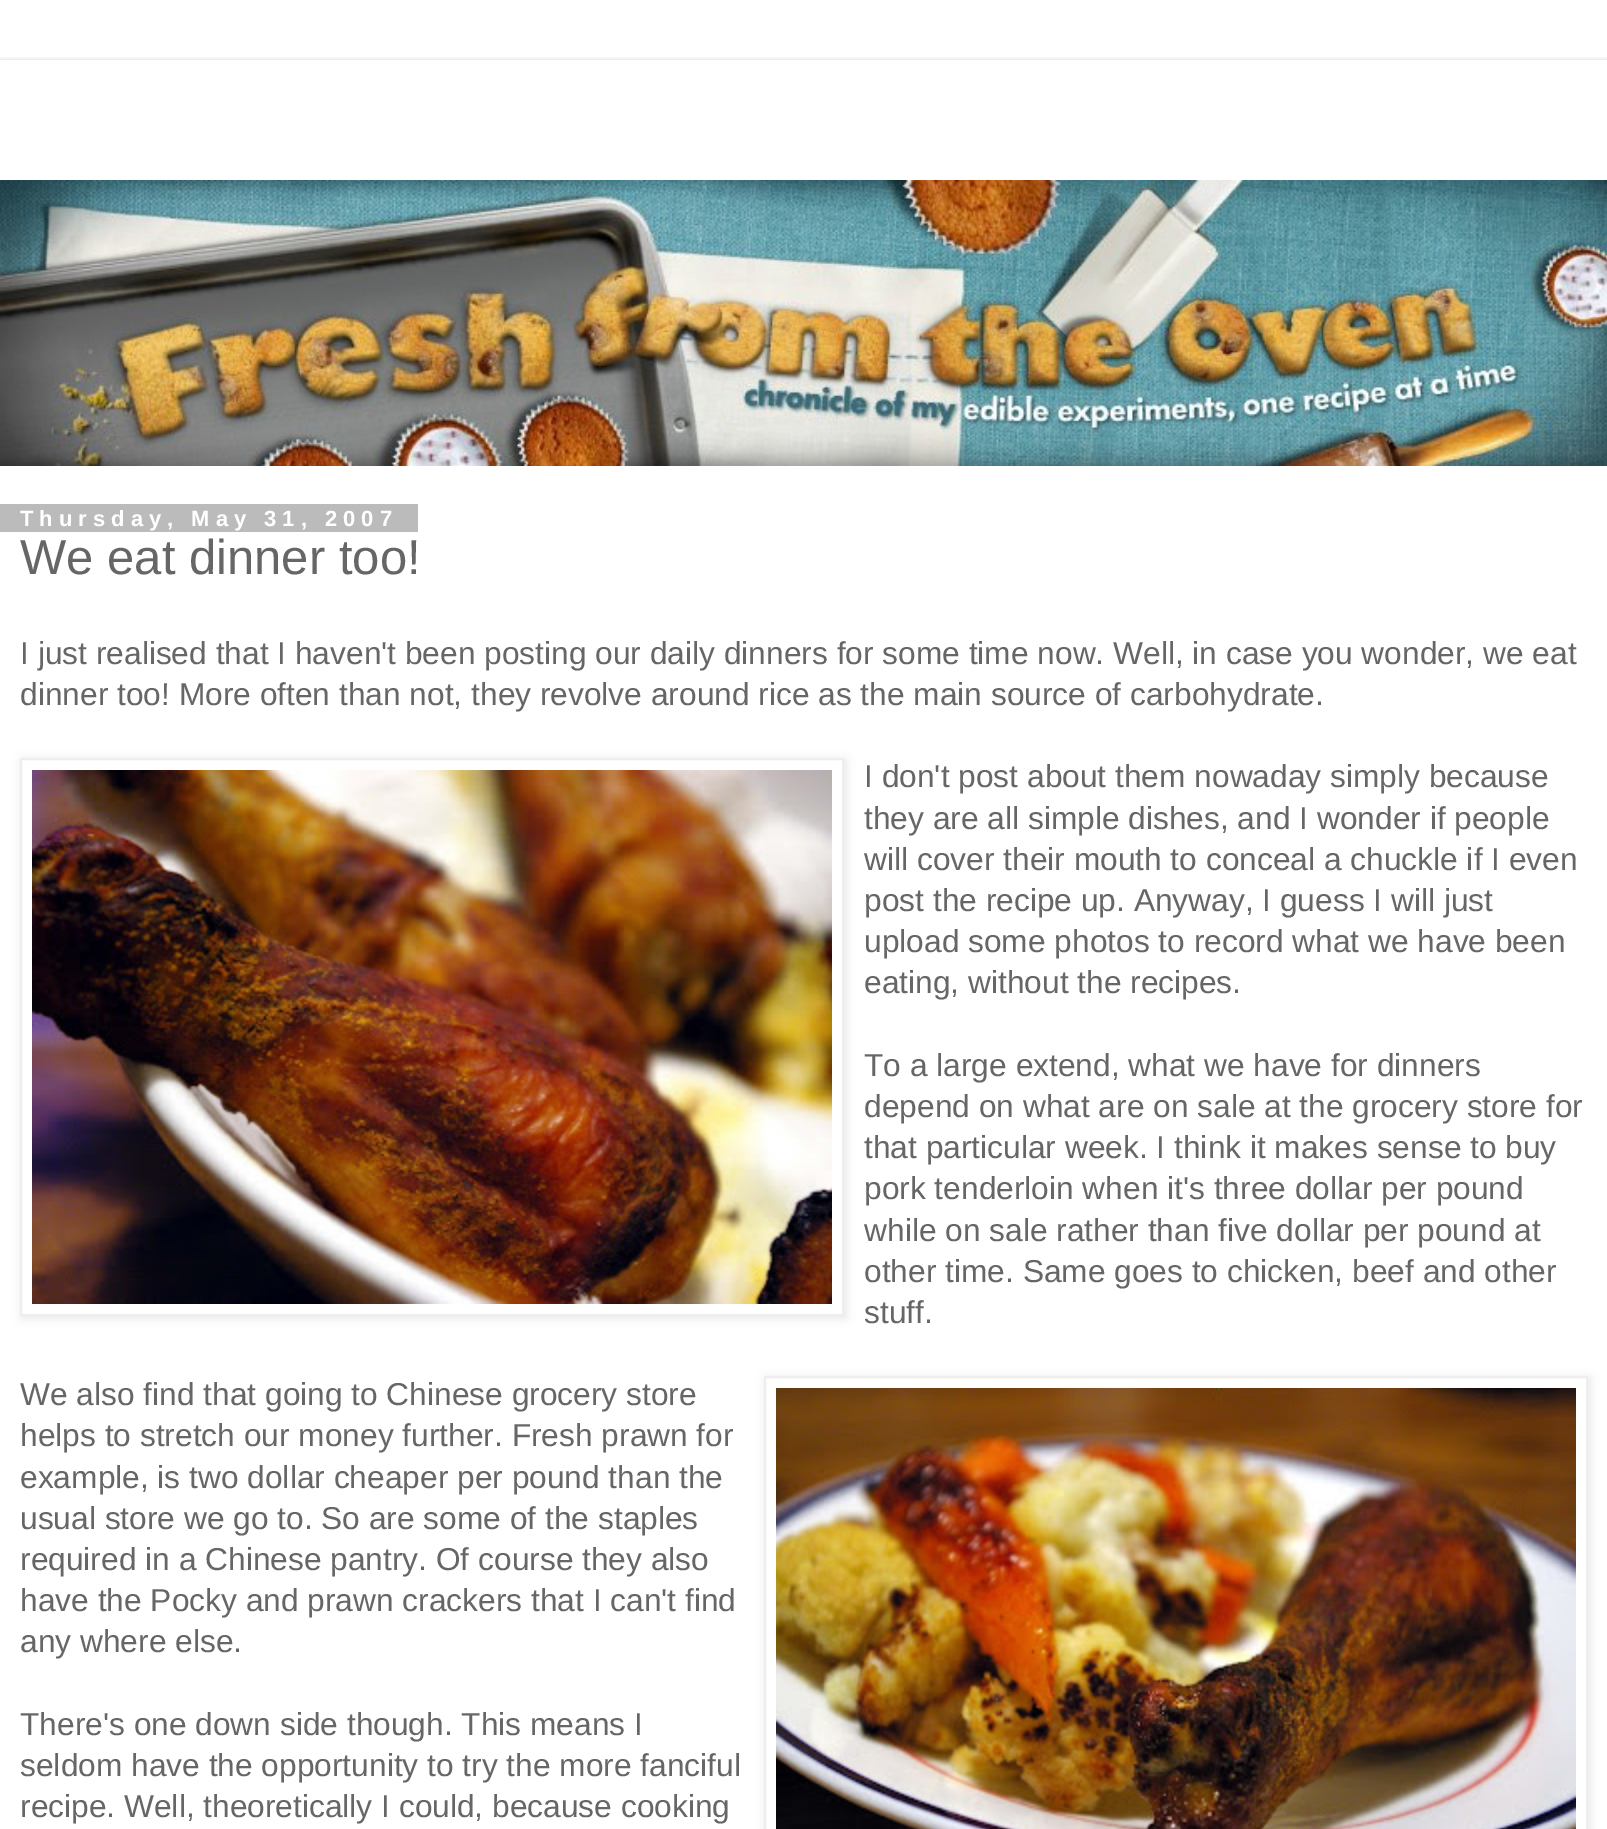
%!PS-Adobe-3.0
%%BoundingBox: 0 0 1607 1829
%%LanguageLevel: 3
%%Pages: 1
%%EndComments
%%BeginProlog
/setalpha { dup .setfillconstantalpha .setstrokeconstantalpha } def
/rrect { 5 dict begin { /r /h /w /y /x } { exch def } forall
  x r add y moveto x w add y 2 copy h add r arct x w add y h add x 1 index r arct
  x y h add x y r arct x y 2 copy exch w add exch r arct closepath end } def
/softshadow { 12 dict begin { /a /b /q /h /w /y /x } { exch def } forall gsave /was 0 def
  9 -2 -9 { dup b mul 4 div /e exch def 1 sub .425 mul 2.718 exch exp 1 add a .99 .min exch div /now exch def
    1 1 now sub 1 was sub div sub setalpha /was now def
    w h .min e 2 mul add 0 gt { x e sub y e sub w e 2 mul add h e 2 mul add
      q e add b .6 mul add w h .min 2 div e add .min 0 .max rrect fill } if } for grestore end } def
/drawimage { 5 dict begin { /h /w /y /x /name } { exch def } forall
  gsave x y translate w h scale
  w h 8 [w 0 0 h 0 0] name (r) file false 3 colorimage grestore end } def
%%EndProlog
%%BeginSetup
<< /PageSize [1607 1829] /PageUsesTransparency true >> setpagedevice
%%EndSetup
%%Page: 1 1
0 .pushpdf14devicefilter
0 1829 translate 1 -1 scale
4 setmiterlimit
1 setgray
0 0 1607 1829 rectfill
gsave
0 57 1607 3 rectclip
0 setgray
0 60 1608 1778 0 3 0.15 softshadow
grestore
(images/1.raw) 0 180 1607 286 drawimage
0.733 setgray
0 504 418 28 rectfill
gsave
newpath 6 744 moveto 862 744 lineto 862 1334 lineto 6 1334 lineto closepath 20 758 moveto 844 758 lineto 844 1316 lineto 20 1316 lineto closepath eoclip newpath
0 setgray
22 760 824 558 0 5 0.1 softshadow
grestore
0.933 setgray
2 setlinewidth
21 759 822 556 rectstroke
(images/2.raw) 32 770 800 534 drawimage
gsave
newpath 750 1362 moveto 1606 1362 lineto 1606 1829 lineto 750 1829 lineto closepath 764 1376 moveto 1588 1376 lineto 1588 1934 lineto 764 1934 lineto closepath eoclip newpath
0 setgray
766 1378 824 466 0 5 0.1 softshadow
grestore
765 1377 822 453 rectstroke
(images/3.raw) 776 1388 800 441 drawimage
/LiberationSans-Bold [22 0 0 -22 0 0] selectfont
1 setgray
20 526 moveto 6 0 (Thursday, May 31, 2007) ashow
/LiberationSans-Regular [49 0 0 -49 0 0] selectfont
0.4 setgray
20 574 moveto (We eat dinner too!) show
/LiberationSans-Regular [31.7 0 0 -31.7 0 0] selectfont
20 664 moveto (I just realised that I haven't been posting our daily dinners for some time now. Well, in case you wonder, we eat) show
20 705 moveto (dinner too! More often than not, they revolve around rice as the main source of carbohydrate.) show
864 787 moveto (I don't post about them nowaday simply because) show
864 829 moveto (they are all simple dishes, and I wonder if people) show
864 870 moveto (will cover their mouth to conceal a chuckle if I even) show
864 911 moveto (post the recipe up. Anyway, I guess I will just) show
864 952 moveto (upload some photos to record what we have been) show
864 993 moveto (eating, without the recipes.) show
864 1076 moveto (To a large extend, what we have for dinners) show
864 1117 moveto (depend on what are on sale at the grocery store for) show
864 1158 moveto (that particular week. I think it makes sense to buy) show
864 1199 moveto (pork tenderloin when it's three dollar per pound) show
864 1241 moveto (while on sale rather than five dollar per pound at) show
864 1282 moveto (other time. Same goes to chicken, beef and other) show
864 1323 moveto (stuff.) show
20 1405 moveto (We also find that going to Chinese grocery store) show
20 1446 moveto (helps to stretch our money further. Fresh prawn for) show
20 1488 moveto (example, is two dollar cheaper per pound than the) show
20 1529 moveto (usual store we go to. So are some of the staples) show
20 1570 moveto (required in a Chinese pantry. Of course they also) show
20 1611 moveto (have the Pocky and prawn crackers that I can't find) show
20 1652 moveto (any where else.) show
20 1735 moveto (There's one down side though. This means I) show
20 1776 moveto (seldom have the opportunity to try the more fanciful) show
20 1817 moveto (recipe. Well, theoretically I could, because cooking) show
.poppdf14devicefilter showpage
%%EOF
